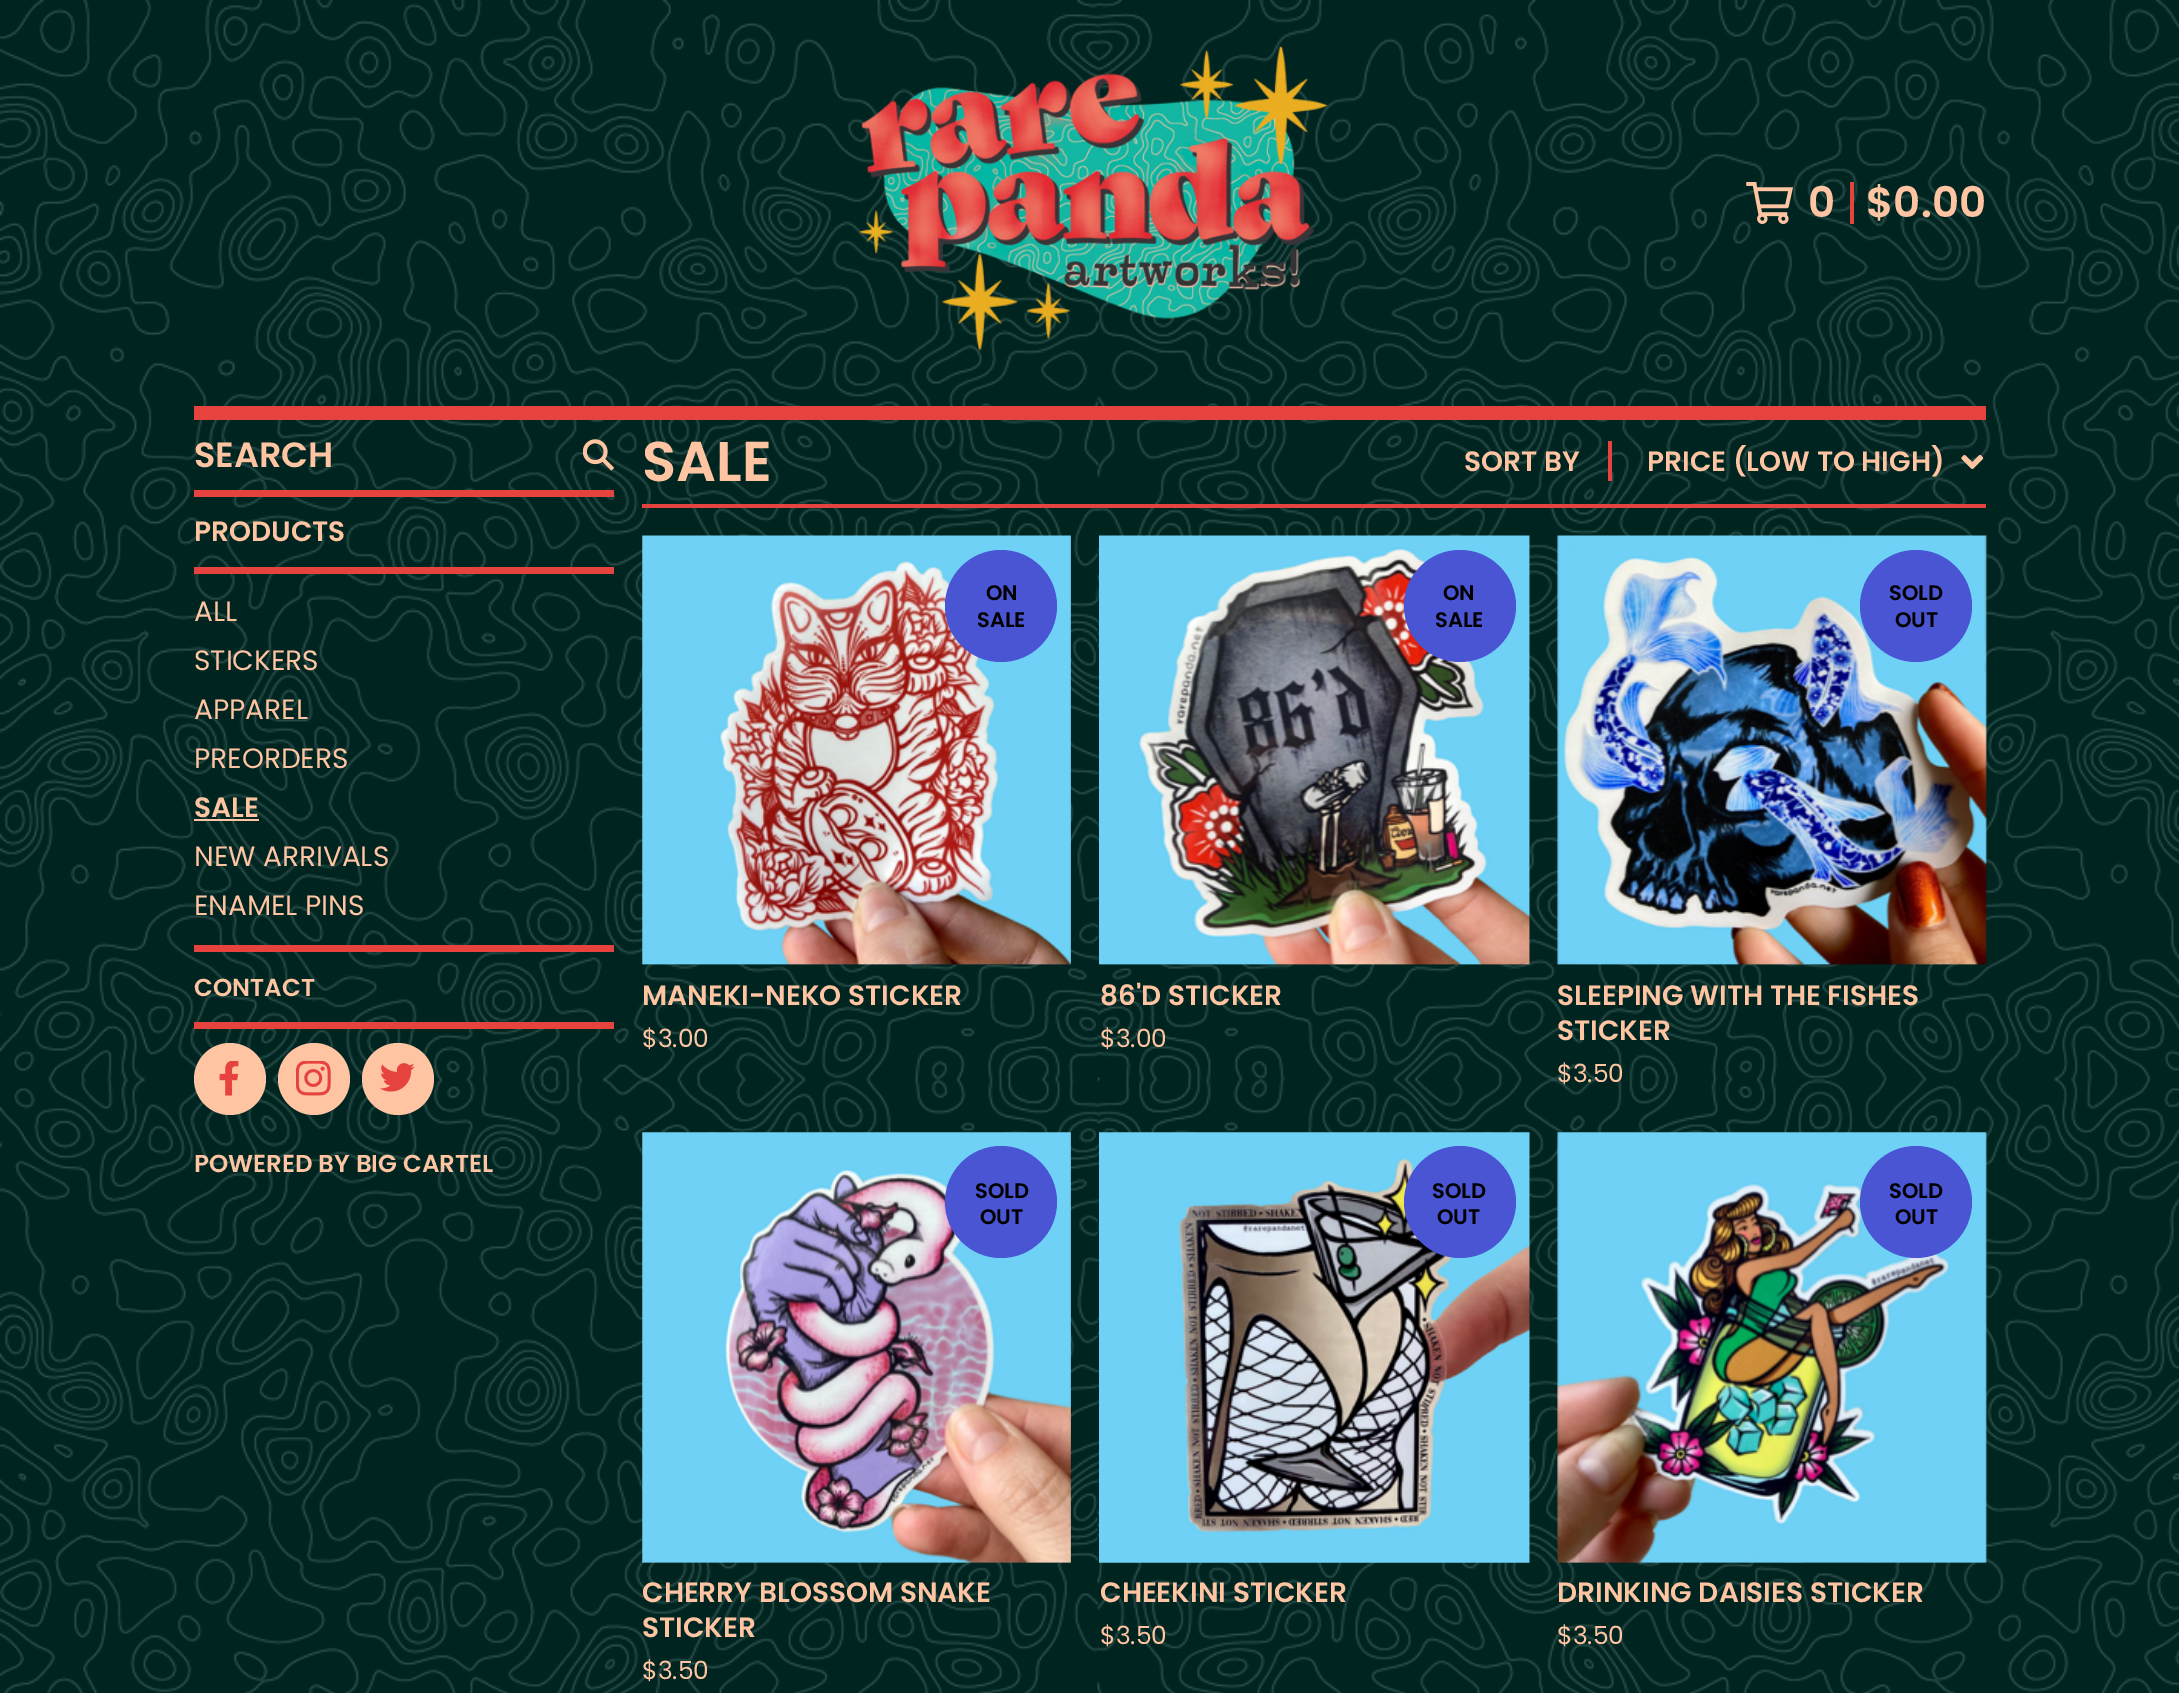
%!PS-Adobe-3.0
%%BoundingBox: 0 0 2179 1693
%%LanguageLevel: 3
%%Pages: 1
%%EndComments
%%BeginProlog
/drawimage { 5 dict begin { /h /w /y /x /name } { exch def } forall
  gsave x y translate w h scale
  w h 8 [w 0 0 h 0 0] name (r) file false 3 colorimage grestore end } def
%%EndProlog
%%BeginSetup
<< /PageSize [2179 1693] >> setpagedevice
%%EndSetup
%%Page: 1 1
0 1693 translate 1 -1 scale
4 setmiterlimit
1 setgray
0 0 2179 1693 rectfill
(images/1.raw) 0 0 2179 1693 drawimage
0.902 0.263 0.247 setrgbcolor
194 406 1792 14 rectfill
(images/2.raw) 858 46 470 305 drawimage
(images/3.raw) 1746 182 47 42 drawimage
1850 182 4 42 rectfill
194 490 420 7 rectfill
(images/4.raw) 583 439 31 32 drawimage
194 945 420 7 rectfill
194 567 420 7 rectfill
1 0.769 0.635 setrgbcolor
194 819 65 2 rectfill
0.902 0.263 0.247 setrgbcolor
194 1022 420 7 rectfill
1 0.769 0.635 setrgbcolor
newpath 230 1079 36 0 360 arc closepath fill
(images/5.raw) 219 1061 20 35 drawimage
newpath 314 1079 36 0 360 arc closepath fill
(images/6.raw) 296 1061 35 35 drawimage
newpath 398 1079 36 0 360 arc closepath fill
(images/7.raw) 380 1063 35 29 drawimage
0.902 0.263 0.247 setrgbcolor
642 504 1344 4 rectfill
1608 441 4 40 rectfill
(images/8.raw) 1961 455 23 14 drawimage
(images/9.raw) 642 535 429 430 drawimage
0.29 0.333 0.831 setrgbcolor
newpath 1001 606 56 0 360 arc closepath fill
(images/10.raw) 1099 535 431 430 drawimage
newpath 1460 606 56 0 360 arc closepath fill
(images/11.raw) 1557 535 430 430 drawimage
newpath 1916 606 56 0 360 arc closepath fill
(images/12.raw) 642 1132 429 431 drawimage
newpath 1001 1202 56 0 360 arc closepath fill
(images/13.raw) 1099 1132 431 431 drawimage
newpath 1460 1202 56 0 360 arc closepath fill
(images/14.raw) 1557 1132 430 431 drawimage
newpath 1916 1202 56 0 360 arc closepath fill
/Poppins-SemiBold [42 0 0 -42 0 0] selectfont
1 0.769 0.635 setrgbcolor
1808 217 moveto (0) show
1866 217 moveto ($0.00) show
/Poppins-SemiBold [35 0 0 -35 0 0] selectfont
194 467 moveto (SEARCH) show
/Poppins-SemiBold [28 0 0 -28 0 0] selectfont
194 541 moveto (PRODUCTS) show
/Poppins-Regular [28 0 0 -28 0 0] selectfont
194 621 moveto (ALL) show
194 670 moveto (STICKERS) show
194 719 moveto (APPAREL) show
194 768 moveto (PREORDERS) show
/Poppins-SemiBold [28 0 0 -28 0 0] selectfont
194 817 moveto (SALE) show
/Poppins-Regular [28 0 0 -28 0 0] selectfont
194 866 moveto (NEW ARRIVALS) show
194 915 moveto (ENAMEL PINS) show
/Poppins-SemiBold [24.5 0 0 -24.5 0 0] selectfont
194 996 moveto (CONTACT) show
194 1172 moveto (POWERED BY BIG CARTEL) show
/Poppins-SemiBold [56 0 0 -56 0 0] selectfont
642 481 moveto (SALE) show
/Poppins-SemiBold [28 0 0 -28 0 0] selectfont
1464 471 moveto (SORT BY) show
1647 471 moveto (PRICE \(LOW TO HIGH\)) show
/Poppins-SemiBold [21 0 0 -21 0 0] selectfont
0 setgray
986 600 moveto (ON) show
977 627 moveto (SALE) show
/Poppins-SemiBold [28 0 0 -28 0 0] selectfont
1 0.769 0.635 setrgbcolor
642 1005 moveto (MANEKI-NEKO STICKER) show
/Poppins-Regular [25 0 0 -25 0 0] selectfont
642 1047 moveto ($3.00) show
/Poppins-SemiBold [21 0 0 -21 0 0] selectfont
0 setgray
1443 600 moveto (ON) show
1435 627 moveto (SALE) show
/Poppins-SemiBold [28 0 0 -28 0 0] selectfont
1 0.769 0.635 setrgbcolor
1100 1005 moveto (86'D STICKER) show
/Poppins-Regular [25 0 0 -25 0 0] selectfont
1100 1047 moveto ($3.00) show
/Poppins-SemiBold [21 0 0 -21 0 0] selectfont
0 setgray
1889 600 moveto (SOLD) show
1895 627 moveto (OUT) show
/Poppins-SemiBold [28 0 0 -28 0 0] selectfont
1 0.769 0.635 setrgbcolor
1557 1005 moveto (SLEEPING WITH THE FISHES) show
1557 1040 moveto (STICKER) show
/Poppins-Regular [25 0 0 -25 0 0] selectfont
1557 1082 moveto ($3.50) show
/Poppins-SemiBold [21 0 0 -21 0 0] selectfont
0 setgray
975 1198 moveto (SOLD) show
980 1224 moveto (OUT) show
/Poppins-SemiBold [28 0 0 -28 0 0] selectfont
1 0.769 0.635 setrgbcolor
642 1602 moveto (CHERRY BLOSSOM SNAKE) show
642 1637 moveto (STICKER) show
/Poppins-Regular [25 0 0 -25 0 0] selectfont
642 1679 moveto ($3.50) show
/Poppins-SemiBold [21 0 0 -21 0 0] selectfont
0 setgray
1432 1198 moveto (SOLD) show
1437 1224 moveto (OUT) show
/Poppins-SemiBold [28 0 0 -28 0 0] selectfont
1 0.769 0.635 setrgbcolor
1100 1602 moveto (CHEEKINI STICKER) show
/Poppins-Regular [25 0 0 -25 0 0] selectfont
1100 1644 moveto ($3.50) show
/Poppins-SemiBold [21 0 0 -21 0 0] selectfont
0 setgray
1889 1198 moveto (SOLD) show
1895 1224 moveto (OUT) show
/Poppins-SemiBold [28 0 0 -28 0 0] selectfont
1 0.769 0.635 setrgbcolor
1557 1602 moveto (DRINKING DAISIES STICKER) show
/Poppins-Regular [25 0 0 -25 0 0] selectfont
1557 1644 moveto ($3.50) show
showpage
%%EOF
